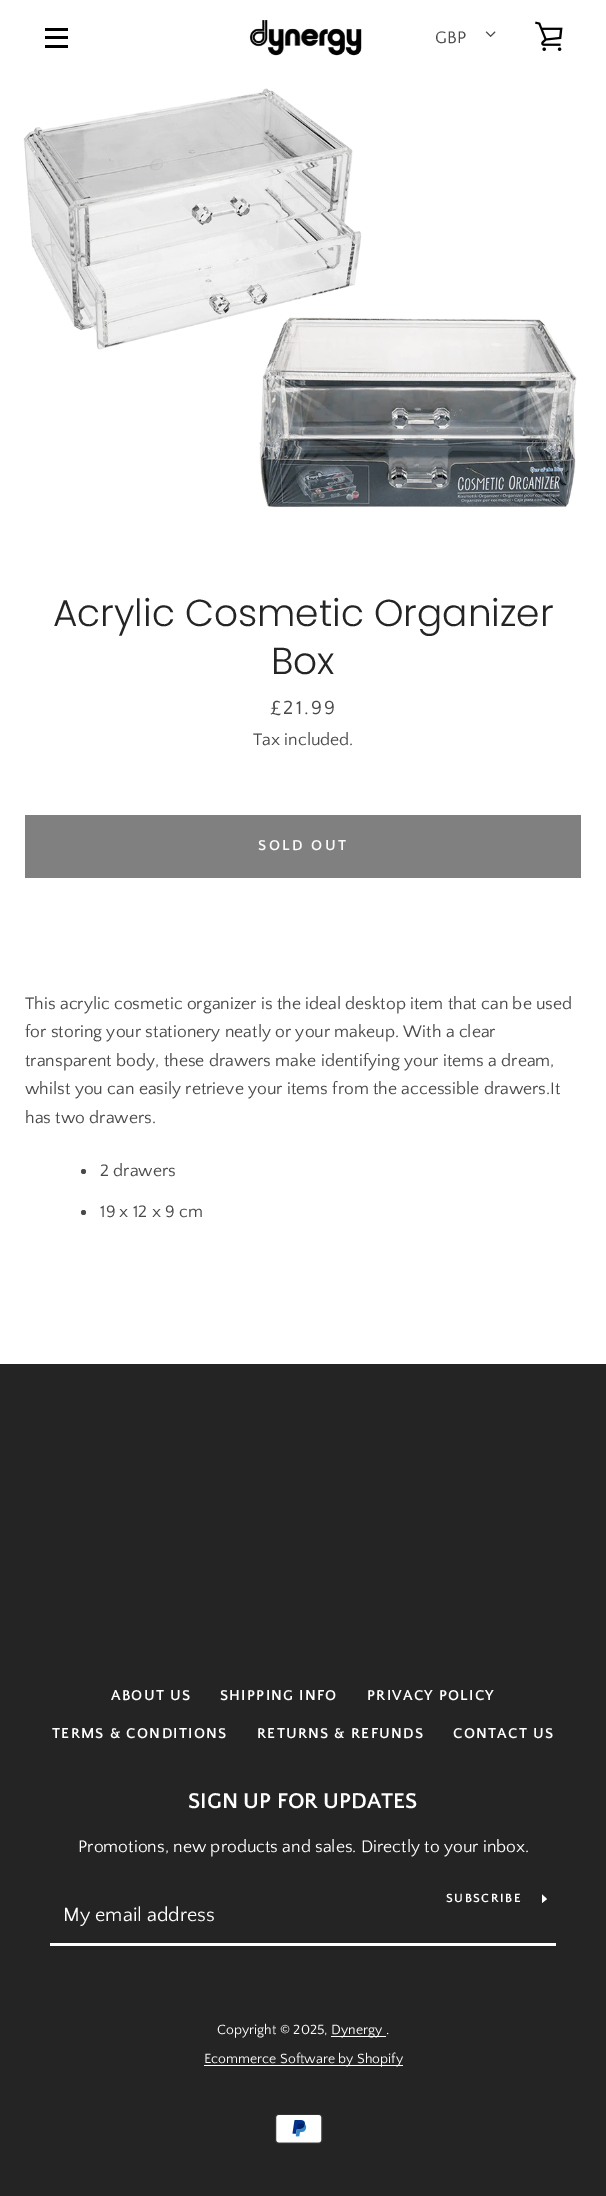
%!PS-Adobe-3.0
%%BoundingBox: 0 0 606 2196
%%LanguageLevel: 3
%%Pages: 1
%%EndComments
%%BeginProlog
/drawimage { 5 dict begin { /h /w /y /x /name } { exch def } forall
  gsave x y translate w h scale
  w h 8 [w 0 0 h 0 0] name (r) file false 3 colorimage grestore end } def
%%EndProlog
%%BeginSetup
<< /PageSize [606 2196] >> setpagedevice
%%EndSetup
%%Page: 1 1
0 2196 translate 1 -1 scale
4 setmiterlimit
0.141 setgray
0 0 606 2196 rectfill
1 setgray
0 0 606 1364 rectfill
0 setgray
45 28 23 3 rectfill
45 36 23 3 rectfill
45 45 23 3 rectfill
(images/1.raw) 249 20 113 36 drawimage
(images/2.raw) 485 31 11 6 drawimage
(images/3.raw) 535 21 28 30 drawimage
(images/4.raw) 23 88 554 420 drawimage
0.502 setgray
25 815 556 63 rectfill
0.29 setgray
newpath 83.5 1171.5 2.5 0 360 arc closepath fill
newpath 83.5 1212.5 2.5 0 360 arc closepath fill
1 setgray
50 1943 506 3 rectfill
newpath 547 1899 moveto 542 1903 lineto 542 1894.5 lineto closepath fill
331 2036 55 1 rectfill
204 2065 199 1 rectfill
(images/5.raw) 275 2114 48 30 drawimage
/QuattrocentoSans-Regular [17.5 0 0 -17.5 0 0] selectfont
0.29 setgray
435 43 moveto (GBP) show
/Poppins-Light [37.5 0 0 -37.5 0 0] selectfont
0.141 setgray
53 626 moveto (Acrylic Cosmetic Organizer) show
271 674 moveto (Box) show
/QuattrocentoSans-Regular [20 0 0 -20 0 0] selectfont
0.29 setgray
270 714 moveto 2 0 (£21.99) ashow
/QuattrocentoSans-Regular [17.5 0 0 -17.5 0 0] selectfont
253 745 moveto (Tax included.) show
/QuattrocentoSans-Bold [15 0 0 -15 0 0] selectfont
0.976 0.98 0.976 setrgbcolor
258 850 moveto 2.5 0 (SOLD OUT) ashow
/QuattrocentoSans-Regular [17.5 0 0 -17.5 0 0] selectfont
0.29 setgray
25 1009 moveto (This acrylic cosmetic organizer is the ideal desktop item that can be used) show
25 1037 moveto (for storing your stationery neatly or your makeup. With a clear) show
25 1066 moveto (transparent body, these drawers make identifying your items a dream,) show
25 1094 moveto (whilst you can easily retrieve your items from the accessible drawers.It) show
25 1123 moveto (has two drawers.) show
100 1176 moveto (2 drawers) show
100 1217 moveto (19 x 12 x 9 cm) show
/QuattrocentoSans-Bold [15 0 0 -15 0 0] selectfont
1 setgray
111 1700 moveto 1.25 0 (ABOUT US) ashow
220 1700 moveto 1.25 0 (SHIPPING INFO) ashow
367 1700 moveto 1.25 0 (PRIVACY POLICY) ashow
52 1738 moveto 1.25 0 (TERMS & CONDITIONS) ashow
257 1738 moveto 1.25 0 (RETURNS & REFUNDS) ashow
453 1738 moveto 1.25 0 (CONTACT US) ashow
/QuattrocentoSans-Bold [22.5 0 0 -22.5 0 0] selectfont
188 1808 moveto (SIGN UP FOR UPDATES) show
/QuattrocentoSans-Regular [17.5 0 0 -17.5 0 0] selectfont
78 1852 moveto (Promotions, new products and sales. Directly to your inbox.) show
/QuattrocentoSans-Bold [12.5 0 0 -12.5 0 0] selectfont
446 1902 moveto 1.5 0 (SUBSCRIBE) ashow
/QuattrocentoSans-Regular [20 0 0 -20 0 0] selectfont
63 1921 moveto (My email address) show
/QuattrocentoSans-Regular [14 0 0 -14 0 0] selectfont
217 2034 moveto (Copyright © 2025,) show
331 2034 moveto (Dynergy .) show
204 2063 moveto (Ecommerce Software by Shopify) show
showpage
%%EOF
